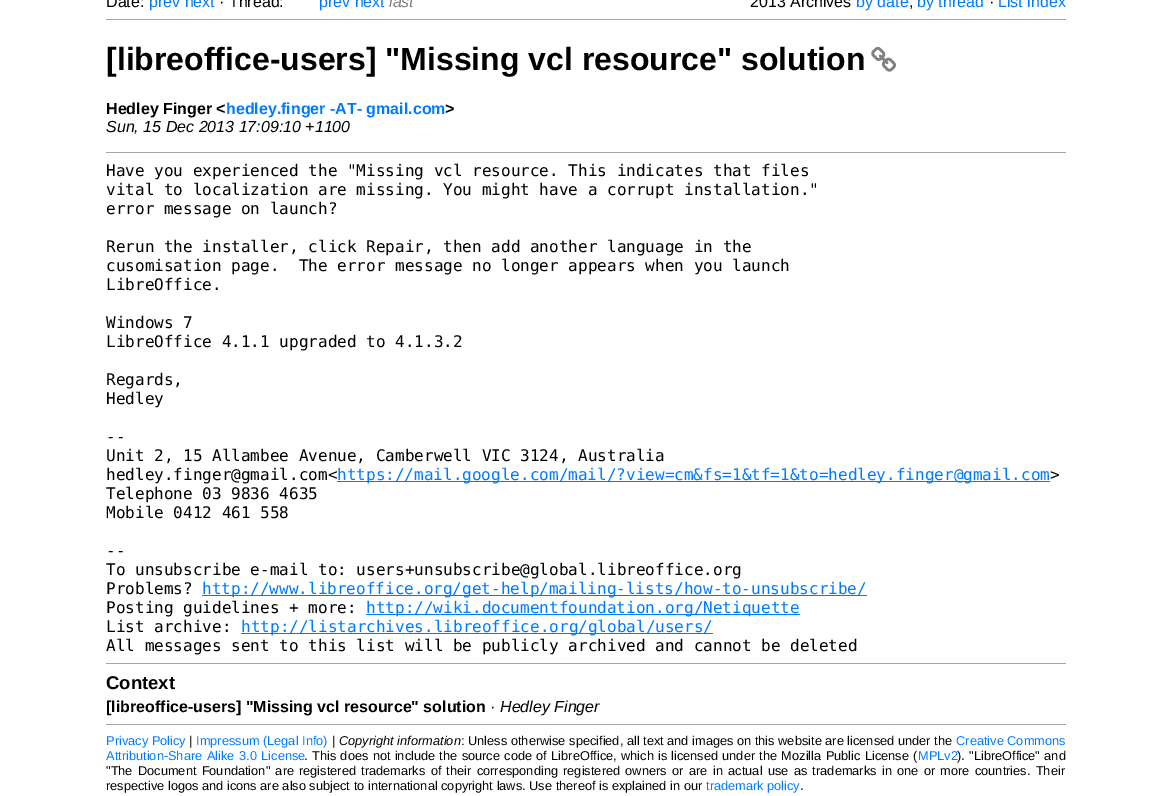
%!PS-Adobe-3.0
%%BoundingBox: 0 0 1172 796
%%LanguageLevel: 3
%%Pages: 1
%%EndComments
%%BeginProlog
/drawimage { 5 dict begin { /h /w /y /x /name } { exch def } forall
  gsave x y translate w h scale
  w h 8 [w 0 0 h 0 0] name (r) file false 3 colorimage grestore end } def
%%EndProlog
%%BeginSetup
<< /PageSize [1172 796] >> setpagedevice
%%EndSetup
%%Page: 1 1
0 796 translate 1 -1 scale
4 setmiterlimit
1 setgray
0 0 1172 796 rectfill
0.651 setgray
106 19 960 1 rectfill
(images/1.raw) 871 46 25 26 drawimage
106 152 960 1 rectfill
0 0.482 1 setrgbcolor
337 481 713 1 rectfill
202 595 665 1 rectfill
366 614 434 1 rectfill
241 633 472 1 rectfill
0.651 setgray
106 663 960 1 rectfill
106 724 960 1 rectfill
/LiberationSans-Regular [16 0 0 -16 0 0] selectfont
0 setgray
106 7 moveto (Date:) show
0 0.482 1 setrgbcolor
149 7 moveto (prev next) show
0 setgray
219 7 moveto (· Thread:) show
0 0.482 1 setrgbcolor
319 7 moveto (prev next) show
/LiberationSans-Italic [16 0 0 -16 0 0] selectfont
0.502 setgray
389 7 moveto (last) show
/LiberationSans-Regular [16 0 0 -16 0 0] selectfont
0 setgray
750 7 moveto (2013 Archives) show
0 0.482 1 setrgbcolor
856 7 moveto (by date) show
917 7 moveto (by thread) show
0 setgray
989 7 moveto (·) show
0 0.482 1 setrgbcolor
998 7 moveto (List index) show
0 setgray
909 7 moveto (,) show
/LiberationSans-Bold [32 0 0 -32 0 0] selectfont
106 70 moveto ([libreoffice-users] "Missing vcl resource" solution) show
/LiberationSans-Bold [16 0 0 -16 0 0] selectfont
106 114 moveto (Hedley Finger <) show
0 0.482 1 setrgbcolor
226 114 moveto (hedley.finger -AT- gmail.com) show
0 setgray
445 114 moveto (>) show
/LiberationSans-Italic [16 0 0 -16 0 0] selectfont
106 132 moveto (Sun, 15 Dec 2013 17:09:10 +1100) show
/DejaVuSansMono-Regular [16 0 0 -16 0 0] selectfont
106 176 moveto (Have you experienced the "Missing vcl resource. This indicates that files) show
106 195 moveto (vital to localization are missing. You might have a corrupt installation.") show
106 214 moveto (error message on launch?) show
106 252 moveto (Rerun the installer, click Repair, then add another language in the) show
106 271 moveto (cusomisation page.  The error message no longer appears when you launch) show
106 290 moveto (LibreOffice.) show
106 328 moveto (Windows 7) show
106 347 moveto (LibreOffice 4.1.1 upgraded to 4.1.3.2) show
106 385 moveto (Regards,) show
106 404 moveto (Hedley) show
106 442 moveto (--) show
106 461 moveto (Unit 2, 15 Allambee Avenue, Camberwell VIC 3124, Australia) show
106 480 moveto (hedley.finger@gmail.com<) show
0 0.482 1 setrgbcolor
337 480 moveto (https://mail.google.com/mail/?view=cm&fs=1&tf=1&to=hedley.finger@gmail.com) show
0 setgray
1050 480 moveto (>) show
106 499 moveto (Telephone 03 9836 4635) show
106 518 moveto (Mobile 0412 461 558) show
106 556 moveto (--) show
106 575 moveto (To unsubscribe e-mail to: users+unsubscribe@global.libreoffice.org) show
106 594 moveto (Problems?) show
0 0.482 1 setrgbcolor
202 594 moveto (http://www.libreoffice.org/get-help/mailing-lists/how-to-unsubscribe/) show
0 setgray
106 613 moveto (Posting guidelines + more:) show
0 0.482 1 setrgbcolor
366 613 moveto (http://wiki.documentfoundation.org/Netiquette) show
0 setgray
106 632 moveto (List archive:) show
0 0.482 1 setrgbcolor
241 632 moveto (http://listarchives.libreoffice.org/global/users/) show
0 setgray
106 651 moveto (All messages sent to this list will be publicly archived and cannot be deleted) show
/LiberationSans-Bold [18.5 0 0 -18.5 0 0] selectfont
106 689 moveto (Context) show
/LiberationSans-Bold [16 0 0 -16 0 0] selectfont
106 712 moveto ([libreoffice-users] "Missing vcl resource" solution) show
/LiberationSans-Regular [16 0 0 -16 0 0] selectfont
490 712 moveto (·) show
/LiberationSans-Italic [16 0 0 -16 0 0] selectfont
500 712 moveto (Hedley Finger) show
/LiberationSans-Regular [12.8 0 0 -12.8 0 0] selectfont
0 0.482 1 setrgbcolor
106 745 moveto (Privacy Policy) show
0 setgray
189 745 moveto (|) show
0 0.482 1 setrgbcolor
196 745 moveto (Impressum \(Legal Info\)) show
0 setgray
332 745 moveto (|) show
/LiberationSans-Italic [12.8 0 0 -12.8 0 0] selectfont
339 745 moveto (Copyright information) show
/LiberationSans-Regular [12.8 0 0 -12.8 0 0] selectfont
461 745 moveto (: Unless otherwise specified, all text and images on this website are licensed under the) show
0 0.482 1 setrgbcolor
956 745 moveto (Creative Commons) show
106 760 moveto 1 0 32 (Attribution-Share Alike 3.0 License) widthshow
0 setgray
304 760 moveto (.) show
312 760 moveto 0.75 0 32 (This does not include the source code of LibreOffice, which is) widthshow
671 760 moveto 0.75 0 32 (licensed under the Mozilla Public License \() widthshow
0 0.482 1 setrgbcolor
918 760 moveto (MPLv2) show
0 setgray
957 760 moveto (\).) show
969 760 moveto 0.75 0 32 ("LibreOffice" and) widthshow
106 775 moveto 1.75 0 32 ("The Document Foundation" are) widthshow
299 775 moveto 1.75 0 32 (registered trademarks of their corresponding registered owners or are) widthshow
713 775 moveto 1.75 0 32 (in actual use as trademarks in one or more countries. Their) widthshow
106 790 moveto (respective logos and icons are also subject to international copyright laws. Use thereof is explained in our) show
0 0.482 1 setrgbcolor
706 790 moveto (trademark policy) show
0 setgray
800 790 moveto (.) show
showpage
%%EOF
